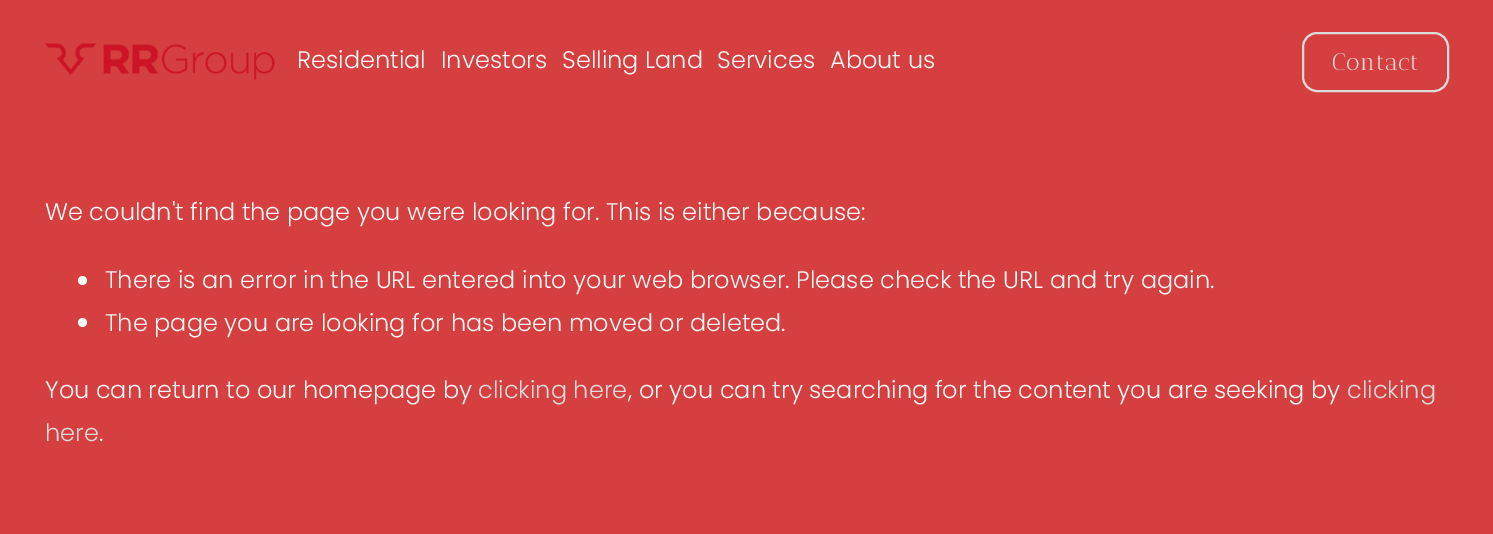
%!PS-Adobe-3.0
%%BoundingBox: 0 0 1493 534
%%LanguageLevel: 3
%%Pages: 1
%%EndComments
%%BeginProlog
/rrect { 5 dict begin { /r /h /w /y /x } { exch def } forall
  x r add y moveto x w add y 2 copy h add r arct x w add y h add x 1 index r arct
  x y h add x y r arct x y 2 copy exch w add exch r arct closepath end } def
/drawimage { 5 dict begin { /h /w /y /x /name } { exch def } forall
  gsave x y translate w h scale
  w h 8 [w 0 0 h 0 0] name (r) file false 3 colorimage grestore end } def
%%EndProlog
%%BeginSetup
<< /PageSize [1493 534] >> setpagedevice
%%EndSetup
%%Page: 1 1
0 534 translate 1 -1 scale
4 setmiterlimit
0.835 0.247 0.247 setrgbcolor
0 0 1493 534 rectfill
(images/1.raw) 45 43 230 37 drawimage
0.863 setgray
2 setlinewidth
1303 33 145 58 14 rrect stroke
0.98 setgray
newpath 82.5 280.5 4.5 0 360 arc closepath fill
newpath 82.5 322.5 4.5 0 360 arc closepath fill
/Poppins-Light [24 0 0 -24 0 0] selectfont
297 68 moveto (Residential) show
441 68 moveto (Investors) show
562 68 moveto (Selling Land) show
717 68 moveto (Services) show
830 68 moveto (About us) show
/AnticDidone-Regular [24 0 0 -24 0 0] selectfont
0.863 setgray
1332 70 moveto 0.5 0 (Contact) ashow
/Poppins-Light [24 0 0 -24 0 0] selectfont
0.98 setgray
45 220 moveto (We couldn't find the page you were looking for. This is either because:) show
105 288 moveto (There is an error in the URL entered into your web browser. Please check the URL and try again.) show
105 331 moveto (The page you are looking for has been moved or deleted.) show
45 398 moveto (You can return to our homepage by) show
0.863 setgray
478 398 moveto (clicking here) show
0.98 setgray
628 398 moveto (, or you can try searching for the content you are seeking by) show
0.863 setgray
1347 398 moveto (clicking) show
45 441 moveto (here) show
0.98 setgray
99 441 moveto (.) show
showpage
%%EOF
